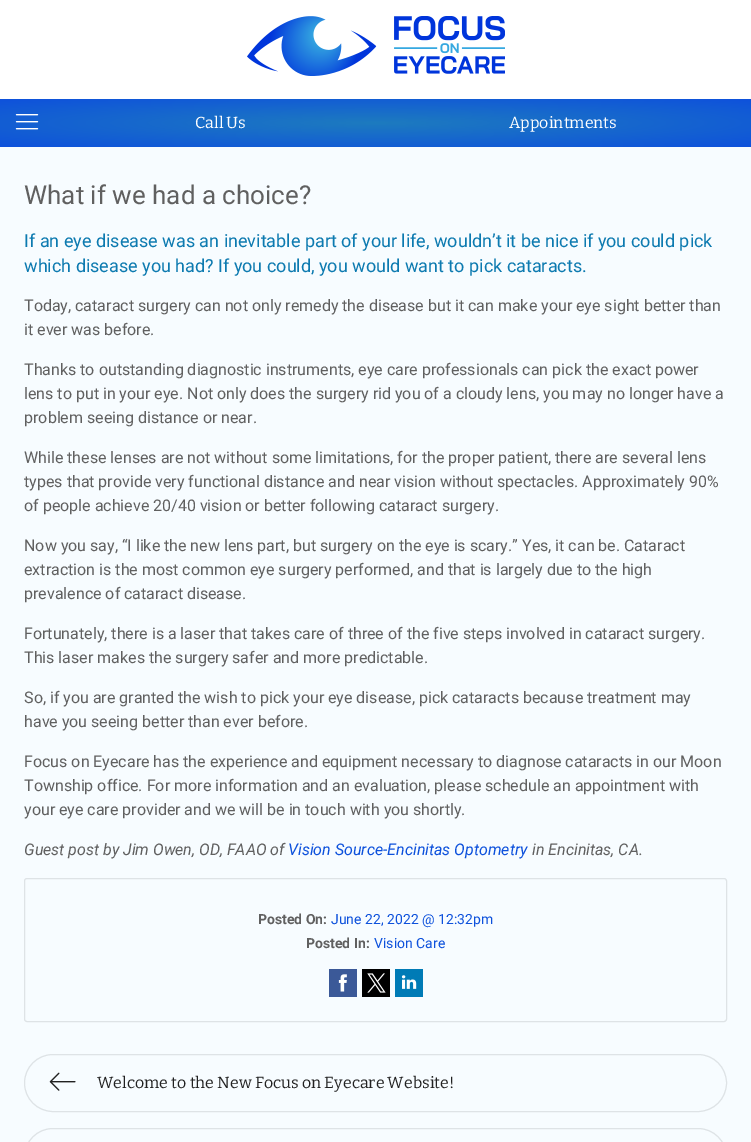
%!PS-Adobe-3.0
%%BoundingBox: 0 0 751 1142
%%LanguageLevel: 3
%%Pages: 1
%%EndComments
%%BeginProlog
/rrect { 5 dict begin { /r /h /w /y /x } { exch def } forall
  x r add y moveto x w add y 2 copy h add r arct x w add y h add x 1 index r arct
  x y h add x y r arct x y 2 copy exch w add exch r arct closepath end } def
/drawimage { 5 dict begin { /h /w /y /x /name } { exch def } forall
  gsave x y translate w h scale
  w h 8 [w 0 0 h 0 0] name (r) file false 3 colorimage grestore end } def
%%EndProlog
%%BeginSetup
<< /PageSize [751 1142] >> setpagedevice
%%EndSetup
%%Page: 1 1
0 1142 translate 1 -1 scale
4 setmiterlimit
0.969 0.988 1 setrgbcolor
0 0 751 1142 rectfill
1 setgray
0 0 751 99 rectfill
(images/1.raw) 247 16 258 60 drawimage
gsave newpath 0 99 moveto 751 99 lineto 751 147 lineto 0 147 lineto closepath clip newpath 376 123 translate 531 34 scale
<< /ShadingType 3 /ColorSpace /DeviceRGB /Coords [0 0 0 0 0 1] /Extend [true true] /Function << /FunctionType 2 /Domain [0 1] /C0 [0.114 0.482 0.749] /C1 [0.055 0.318 0.863] /N 1 >> >> shfill grestore
(images/2.raw) 15 114 24 16 drawimage
0.871 0.89 0.902 setrgbcolor
24.5 878.5 702 143 2.5 rrect stroke
1 setgray
338 974 9 18 rectfill
(images/3.raw) 329 969 28 28 drawimage
(images/4.raw) 362 969 28 28 drawimage
401 975 16 14 rectfill
(images/5.raw) 395 969 28 28 drawimage
0.871 0.89 0.902 setrgbcolor
24.5 1054.5 702 57 28.5 rrect stroke
(images/6.raw) 49 1072 27 19 drawimage
24.5 1128.5 702 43 28.5 rrect stroke
/Bitter-Thin [16 0 0 -16 0 0] selectfont
1 setgray
195 128 moveto (Call Us) show
509 128 moveto (Appointments) show
/Roboto-Regular [26 0 0 -26 0 0] selectfont
0.376 setgray
24 204 moveto (What if we had a choice?) show
/Roboto-Regular [18 0 0 -18 0 0] selectfont
0.047 0.478 0.69 setrgbcolor
24 247 moveto (If an eye disease was an inevitable part of your life, wouldn’t it be nice if you could pick) show
24 272 moveto (which disease you had? If you could, you would want to pick cataracts.) show
/Roboto-Regular [16 0 0 -16 0 0] selectfont
0.376 setgray
24 311 moveto (Today, cataract surgery can not only remedy the disease but it can make your eye sight better than) show
24 335 moveto (it ever was before.) show
24 375 moveto (Thanks to outstanding diagnostic instruments, eye care professionals can pick the exact power) show
24 399 moveto (lens to put in your eye. Not only does the surgery rid you of a cloudy lens, you may no longer have a) show
24 423 moveto (problem seeing distance or near.) show
24 463 moveto (While these lenses are not without some limitations, for the proper patient, there are several lens) show
24 487 moveto (types that provide very functional distance and near vision without spectacles. Approximately 90%) show
24 511 moveto (of people achieve 20/40 vision or better following cataract surgery.) show
24 551 moveto (Now you say, “I like the new lens part, but surgery on the eye is scary.” Yes, it can be. Cataract) show
24 575 moveto (extraction is the most common eye surgery performed, and that is largely due to the high) show
24 599 moveto (prevalence of cataract disease.) show
24 639 moveto (Fortunately, there is a laser that takes care of three of the five steps involved in cataract surgery.) show
24 663 moveto (This laser makes the surgery safer and more predictable.) show
24 703 moveto (So, if you are granted the wish to pick your eye disease, pick cataracts because treatment may) show
24 727 moveto (have you seeing better than ever before.) show
24 767 moveto (Focus on Eyecare has the experience and equipment necessary to diagnose cataracts in our Moon) show
24 791 moveto (Township office. For more information and an evaluation, please schedule an appointment with) show
24 815 moveto (your eye care provider and we will be in touch with you shortly.) show
/Roboto-Italic [16 0 0 -16 0 0] selectfont
24 855 moveto (Guest post by Jim Owen, OD, FAAO of) show
0.051 0.318 0.863 setrgbcolor
288 855 moveto (Vision Source-Encinitas Optometry) show
0.376 setgray
532 855 moveto (in Encinitas, CA.) show
/Roboto-Bold [14 0 0 -14 0 0] selectfont
258 924 moveto (Posted On:) show
/Roboto-Regular [14 0 0 -14 0 0] selectfont
0.051 0.318 0.863 setrgbcolor
331 924 moveto (June 22, 2022 @ 12:32pm) show
/Roboto-Bold [14 0 0 -14 0 0] selectfont
0.376 setgray
306 948 moveto (Posted In:) show
/Roboto-Regular [14 0 0 -14 0 0] selectfont
0.051 0.318 0.863 setrgbcolor
374 948 moveto (Vision Care) show
/Bitter-Thin [16 0 0 -16 0 0] selectfont
0.129 setgray
97 1088 moveto (Welcome to the New Focus on Eyecare Website!) show
showpage
%%EOF
